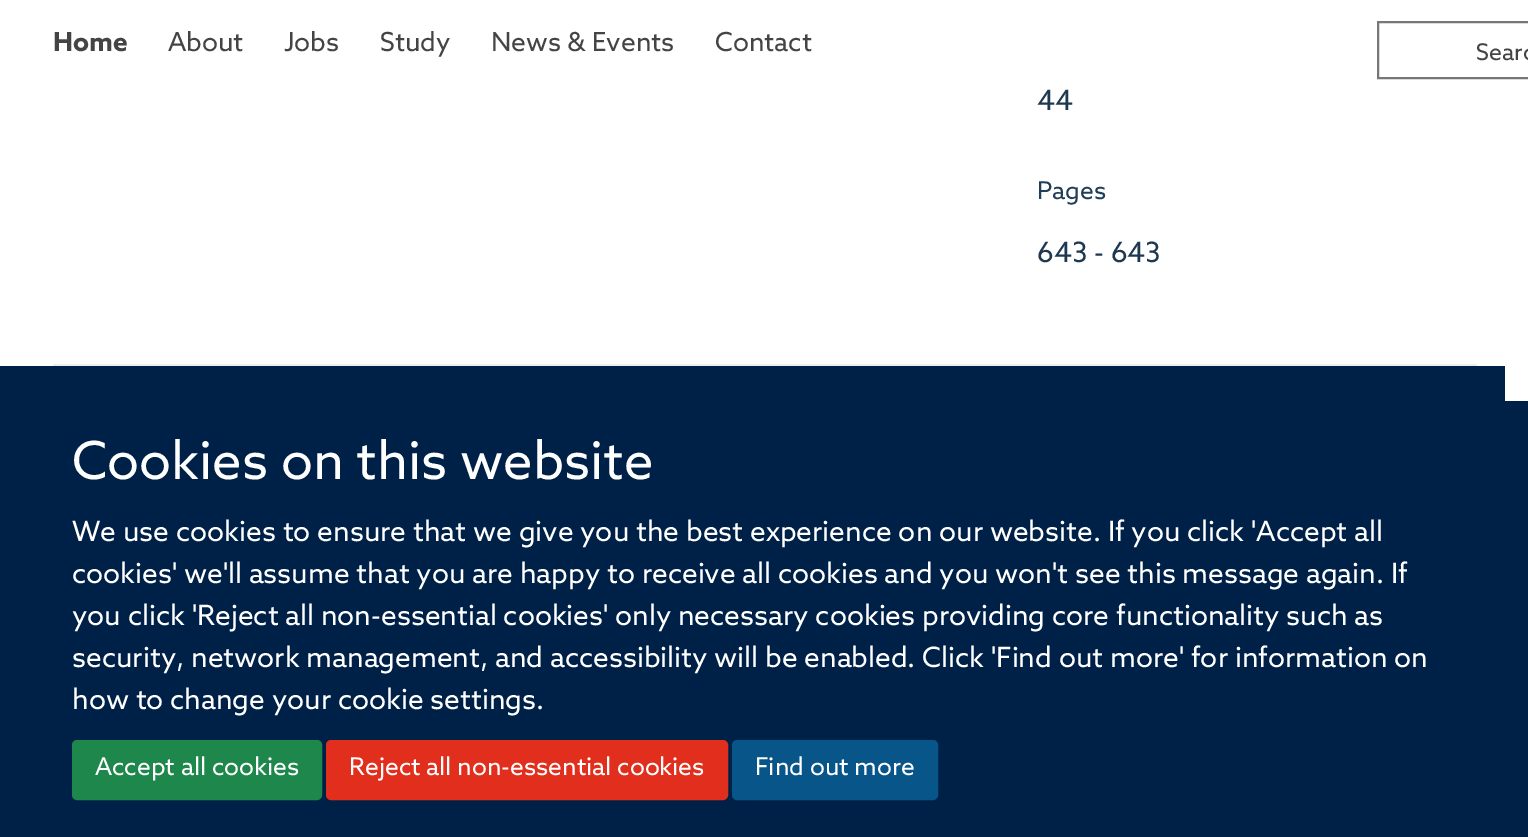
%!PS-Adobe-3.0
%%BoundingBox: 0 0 1528 837
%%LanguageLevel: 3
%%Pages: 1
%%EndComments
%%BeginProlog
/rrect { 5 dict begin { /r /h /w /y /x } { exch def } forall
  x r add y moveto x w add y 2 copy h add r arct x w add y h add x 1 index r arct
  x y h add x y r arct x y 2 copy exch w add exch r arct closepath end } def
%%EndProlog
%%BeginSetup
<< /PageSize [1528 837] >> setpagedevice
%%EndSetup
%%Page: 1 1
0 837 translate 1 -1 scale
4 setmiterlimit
1 setgray
0 0 1528 837 rectfill
0.467 setgray
2 setlinewidth
1378 22 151 56 rectstroke
0.933 setgray
53 364 1424 2 rectfill
0 0.129 0.278 setrgbcolor
0 366 1505 35 rectfill
0 401 1528 436 rectfill
0.118 0.529 0.294 setrgbcolor
73 741 248 58 4 rrect gsave fill grestore
stroke
0.886 0.18 0.11 setrgbcolor
327 741 400 58 4 rrect gsave fill grestore
stroke
0.031 0.333 0.537 setrgbcolor
733 741 204 58 4 rrect gsave fill grestore
stroke
/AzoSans-Bold [26.25 0 0 -26.25 0 0] selectfont
0.267 setgray
53 51 moveto (Home) show
/AzoSans-Regular [26.25 0 0 -26.25 0 0] selectfont
168 51 moveto (About) show
284 51 moveto (Jobs) show
380 51 moveto (Study) show
491 51 moveto (News & Events) show
715 51 moveto (Contact) show
/AzoSans-Regular [23 0 0 -23 0 0] selectfont
1476 60 moveto (Searc) show
/AzoSans-Regular [28 0 0 -28 0 0] selectfont
0.114 0.22 0.314 setrgbcolor
1037 110 moveto (44) show
/AzoSans-Regular [24.5 0 0 -24.5 0 0] selectfont
0.125 0.243 0.345 setrgbcolor
1037 199 moveto (Pages) show
/AzoSans-Regular [28 0 0 -28 0 0] selectfont
0.114 0.22 0.314 setrgbcolor
1037 262 moveto (643 - 643) show
/AzoSans-Regular [52.5 0 0 -52.5 0 0] selectfont
1 setgray
72 479 moveto (Cookies on this website) show
/AzoSans-Regular [28 0 0 -28 0 0] selectfont
72 541 moveto (We use cookies to ensure that we give you the best experience on our website. If you click 'Accept all) show
72 583 moveto (cookies' we'll assume that you are happy to receive all cookies and you won't see this message again. If) show
72 625 moveto (you click 'Reject all non-essential cookies' only necessary cookies providing core functionality such as) show
72 667 moveto (security, network management, and accessibility will be enabled. Click 'Find out more' for information on) show
72 709 moveto (how to change your cookie settings.) show
/AzoSans-Regular [24.5 0 0 -24.5 0 0] selectfont
95 775 moveto (Accept all cookies) show
349 775 moveto (Reject all non-essential cookies) show
755 775 moveto (Find out more) show
showpage
%%EOF
